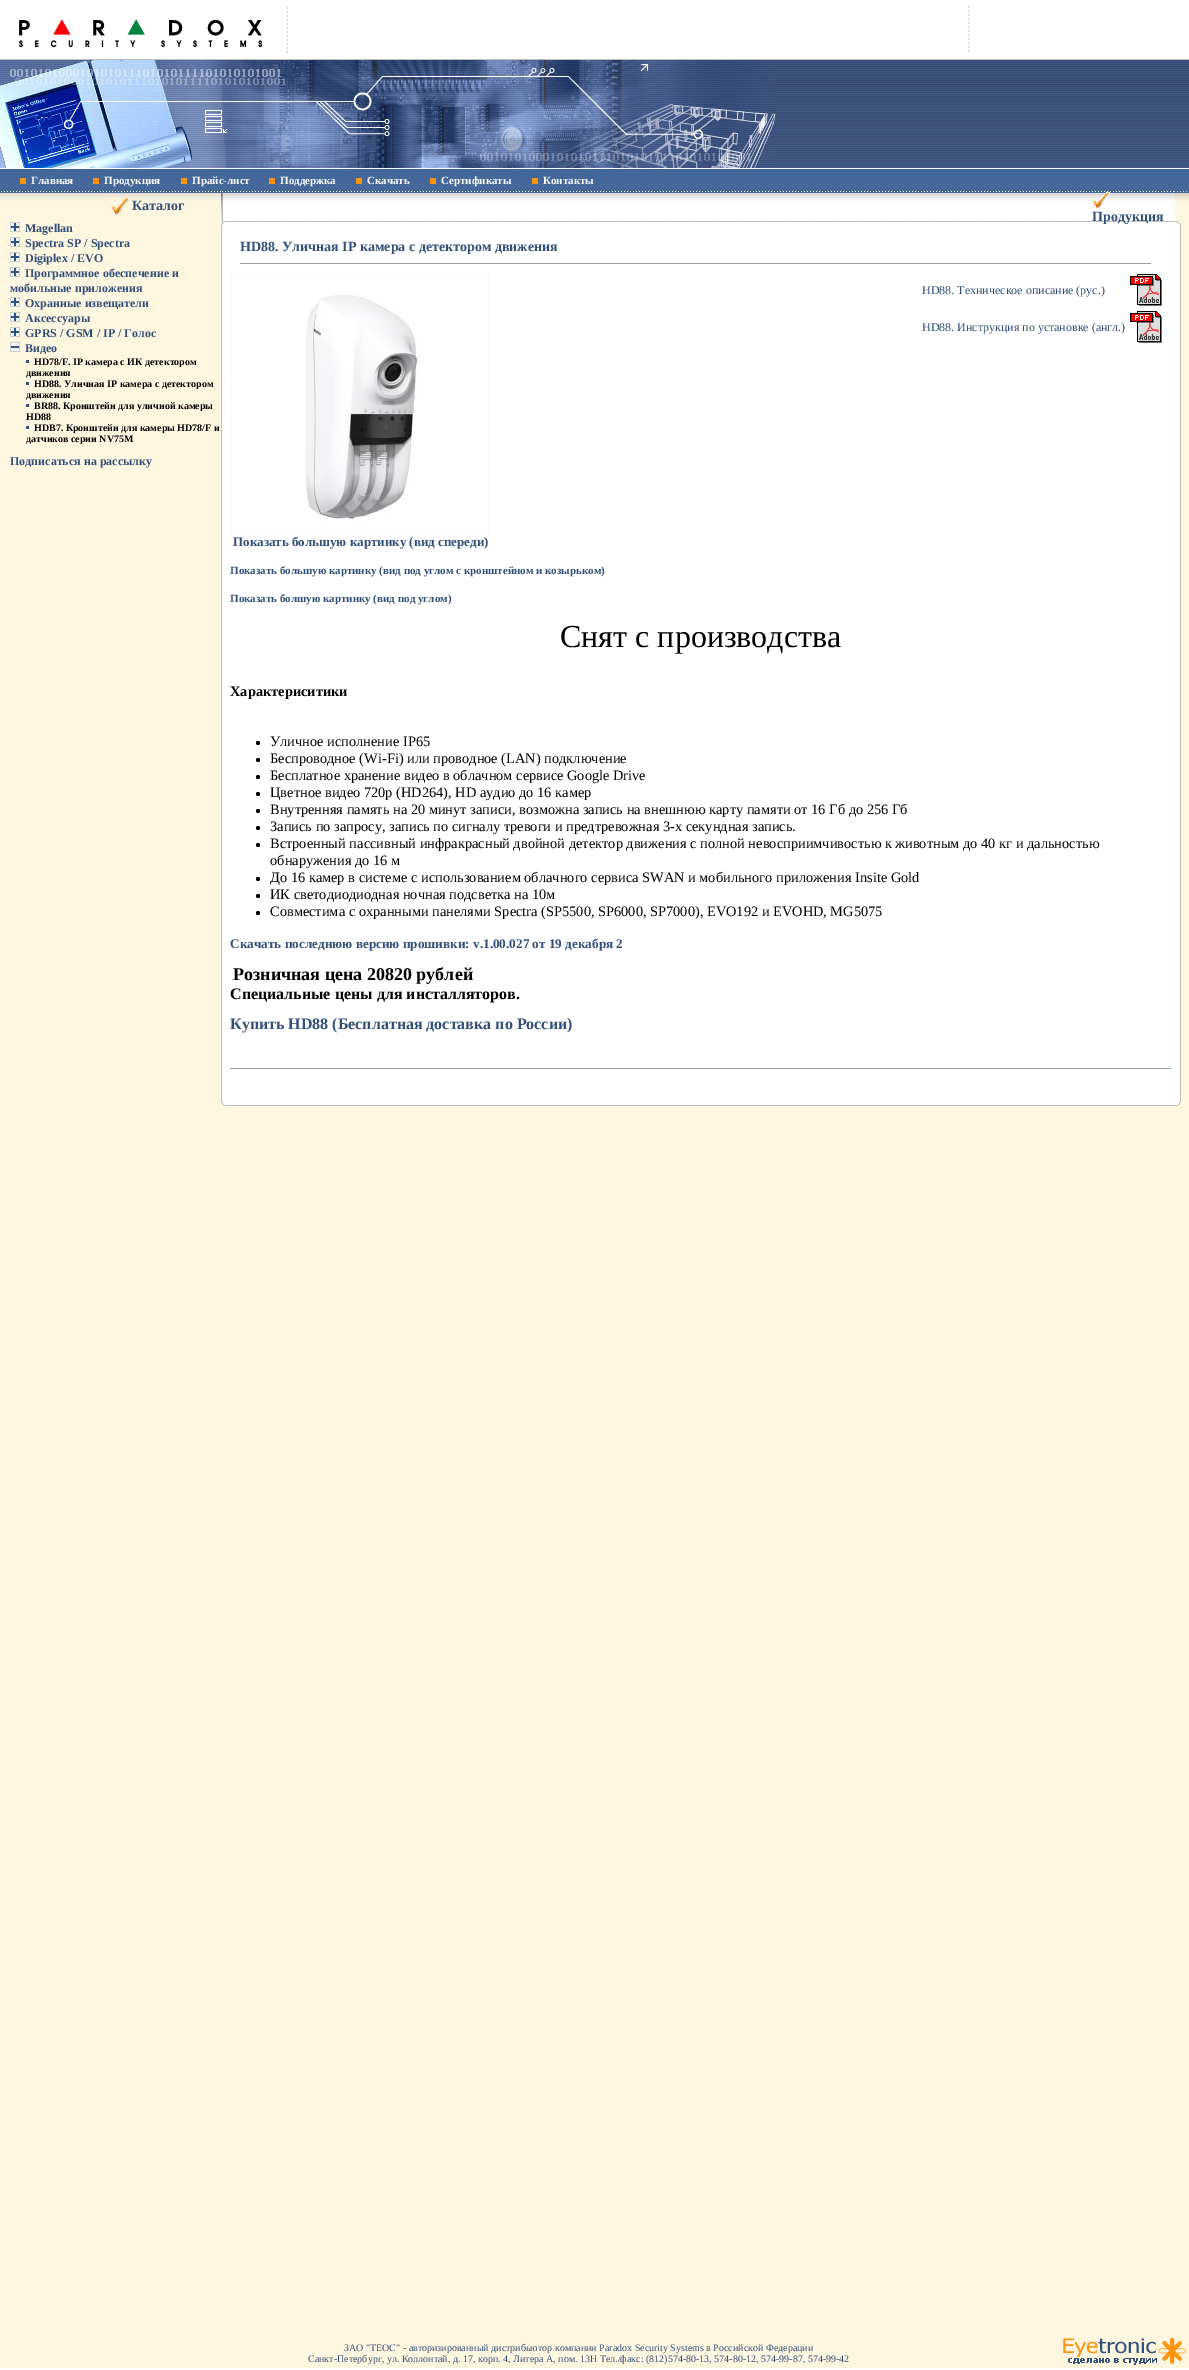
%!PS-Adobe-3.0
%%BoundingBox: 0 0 1189 2370
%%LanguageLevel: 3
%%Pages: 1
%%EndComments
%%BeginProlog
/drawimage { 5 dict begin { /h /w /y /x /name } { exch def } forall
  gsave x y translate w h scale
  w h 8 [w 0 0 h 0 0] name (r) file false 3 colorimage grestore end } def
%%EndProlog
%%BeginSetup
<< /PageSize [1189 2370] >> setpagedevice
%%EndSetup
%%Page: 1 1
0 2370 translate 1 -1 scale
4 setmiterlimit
1 setgray
0 0 1189 2370 rectfill
(images/1.raw) 19 7 269 46 drawimage
(images/2.raw) 968 6 1 46 drawimage
(images/3.raw) 776 59 413 110 drawimage
(images/4.raw) 0 59 776 110 drawimage
0.267 0.408 0.604 setrgbcolor
0 169 1189 22 rectfill
1 0.58 0.039 setrgbcolor
20 178 6 6 rectfill
93 178 6 6 rectfill
181 178 6 6 rectfill
269 178 6 6 rectfill
356 178 6 6 rectfill
430 178 6 6 rectfill
532 178 6 6 rectfill
1 0.965 0.878 setrgbcolor
0 201 221 2099 rectfill
(images/5.raw) 0 191 221 10 drawimage
(images/6.raw) 110 196 19 20 drawimage
(images/7.raw) 10 222 10 10 drawimage
(images/7.raw) 10 237 10 10 drawimage
(images/7.raw) 10 252 10 10 drawimage
(images/7.raw) 10 267 10 10 drawimage
(images/7.raw) 10 297 10 10 drawimage
(images/7.raw) 10 312 10 10 drawimage
(images/7.raw) 10 327 10 10 drawimage
(images/8.raw) 10 342 10 10 drawimage
0.176 0.325 0.506 setrgbcolor
26 360 3 3 rectfill
26 382 3 3 rectfill
26 404 3 3 rectfill
26 426 3 3 rectfill
1 0.965 0.878 setrgbcolor
221 225 968 2075 rectfill
(images/9.raw) 221 191 4 34 drawimage
(images/10.raw) 225 191 949 34 drawimage
(images/11.raw) 1092 192 18 17 drawimage
(images/12.raw) 1174 191 15 34 drawimage
(images/13.raw) 221 225 4 877 drawimage
1 setgray
225 225 952 877 rectfill
0.624 setgray
240 263 912 1 rectfill
0.933 setgray
1151 263 1 1 rectfill
(images/14.raw) 230 274 260 260 drawimage
(images/15.raw) 1130 274 32 32 drawimage
(images/15.raw) 1130 311 32 32 drawimage
0 setgray
newpath 258 743 2 0 360 arc closepath fill
newpath 258 760 2 0 360 arc closepath fill
newpath 258 777 2 0 360 arc closepath fill
newpath 258 794 2 0 360 arc closepath fill
newpath 258 811 2 0 360 arc closepath fill
newpath 258 828 2 0 360 arc closepath fill
newpath 258 845 2 0 360 arc closepath fill
newpath 258 879 2 0 360 arc closepath fill
newpath 258 896 2 0 360 arc closepath fill
newpath 258 913 2 0 360 arc closepath fill
0.624 setgray
230 1068 942 1 rectfill
0.933 setgray
1171 1068 1 1 rectfill
(images/16.raw) 1177 225 4 877 drawimage
(images/17.raw) 221 1102 4 4 drawimage
(images/18.raw) 225 1102 952 4 drawimage
(images/19.raw) 1177 1102 4 4 drawimage
1 0.965 0.878 setrgbcolor
0 2300 1189 68 rectfill
(images/20.raw) 1063 2337 123 28 drawimage
/LiberationSerif-Bold [11 0 0 -11 0 0] selectfont
1 setgray
31 184 moveto (Главная) show
104 184 moveto (Продукция) show
192 184 moveto (Прайс-лист) show
280 184 moveto (Поддержка) show
367 184 moveto (Скачать) show
441 184 moveto (Сертификаты) show
543 184 moveto (Контакты) show
/LiberationSerif-Bold [14 0 0 -14 0 0] selectfont
0.188 0.31 0.478 setrgbcolor
132 210 moveto (Каталог) show
/LiberationSerif-Bold [12 0 0 -12 0 0] selectfont
25 232 moveto (Magellan) show
25 247 moveto (Spectra SP / Spectra) show
25 262 moveto (Digiplex / EVO) show
25 277 moveto (Программное обеспечение и) show
10 292 moveto (мобильные приложения) show
25 307 moveto (Охранные извещатели) show
25 322 moveto (Аксессуары) show
25 337 moveto (GPRS / GSM / IP / Голос) show
25 352 moveto (Видео) show
/LiberationSerif-Bold [10 0 0 -10 0 0] selectfont
0 setgray
34 365 moveto (HD78/F. IP камера с ИК детектором) show
26 376 moveto (движения) show
34 387 moveto (HD88. Уличная IP камера с детектором) show
26 398 moveto (движения) show
34 409 moveto (BR88. Кронштейн для уличной камеры) show
26 420 moveto (HD88) show
34 431 moveto (HDB7. Кронштейн для камеры HD78/F и) show
26 442 moveto (датчиков серии NV75M) show
/LiberationSerif-Bold [12 0 0 -12 0 0] selectfont
0.188 0.31 0.478 setrgbcolor
10 465 moveto (Подписаться на рассылку) show
/LiberationSerif-Bold [14 0 0 -14 0 0] selectfont
1092 221 moveto (Продукция) show
240 251 moveto (HD88. Уличная IP камера с детектором движения) show
/LiberationSerif-Regular [12 0 0 -12 0 0] selectfont
922 294 moveto (HD88. Техническое описание \(рус.\)) show
922 331 moveto (HD88. Инструкция по установке \(англ.\)) show
/LiberationSerif-Bold [13 0 0 -13 0 0] selectfont
233 546 moveto (Показать большую картинку \(вид спереди\)) show
/LiberationSerif-Bold [11 0 0 -11 0 0] selectfont
230 574 moveto (Показать большую картинку \(вид под углом с кронштейном и козырьком\)) show
230 602 moveto (Показать болшую картинку \(вид под углом\)) show
/LiberationSerif-Regular [32 0 0 -32 0 0] selectfont
0 setgray
560 647 moveto (Снят с производства) show
/LiberationSerif-Bold [14.4 0 0 -14.4 0 0] selectfont
230 696 moveto (Характериситики) show
/LiberationSerif-Regular [14.4 0 0 -14.4 0 0] selectfont
270 746 moveto (Уличное исполнение IP65) show
270 763 moveto (Беспроводное \(Wi-Fi\) или проводное \(LAN\) подключение) show
270 780 moveto (Бесплатное хранение видео в облачном сервисе Google Drive) show
270 797 moveto (Цветное видео 720p \(HD264\), HD аудио до 16 камер) show
270 814 moveto (Внутренняя память на 20 минут записи, возможна запись на внешнюю карту памяти от 16 Гб до 256 Гб) show
270 831 moveto (Запись по запросу, запись по сигналу тревоги и предтревожная 3-х секундная запись.) show
270 848 moveto (Встроенный пассивный инфракрасный двойной детектор движения с полной невосприимчивостью к) show
895 848 moveto (животным до 40 кг и дальностью) show
270 865 moveto (обнаружения до 16 м) show
270 882 moveto (До 16 камер в системе с использованием облачного сервиса SWAN и мобильного приложения Insite Gold) show
270 899 moveto (ИК светодиодиодная ночная подсветка на 10м) show
270 916 moveto (Совместима с охранными панелями Spectra \(SP5500, SP6000, SP7000\), EVO192 и EVOHD, MG5075) show
/LiberationSerif-Bold [13.2 0 0 -13.2 0 0] selectfont
0.188 0.31 0.478 setrgbcolor
230 948 moveto (Скачать последнюю версию прошивки: v.1.00.027 от 19 декабря 2) show
/LiberationSerif-Bold [18 0 0 -18 0 0] selectfont
0 setgray
233 980 moveto (Розничная цена 20820 рублей) show
/LiberationSerif-Bold [16 0 0 -16 0 0] selectfont
230 999 moveto (Специальные цены для инсталляторов.) show
0.188 0.31 0.478 setrgbcolor
230 1029 moveto (Купить HD88 \(Бесплатная доставка по России\)) show
/LiberationSerif-Regular [10 0 0 -10 0 0] selectfont
344 2351 moveto (ЗАО "ТЕОС" - авторизированный дистрибьютор компании Paradox Security Systems в Российской Федерации) show
308 2362 moveto (Санкт-Петербург, ул. Коллонтай, д. 17, корп. 4, Литера А, пом. 13Н Тел./факс: \(812\)574-80-13, 574-80-12, 574-99-87, 574-99-42) show
showpage
%%EOF
